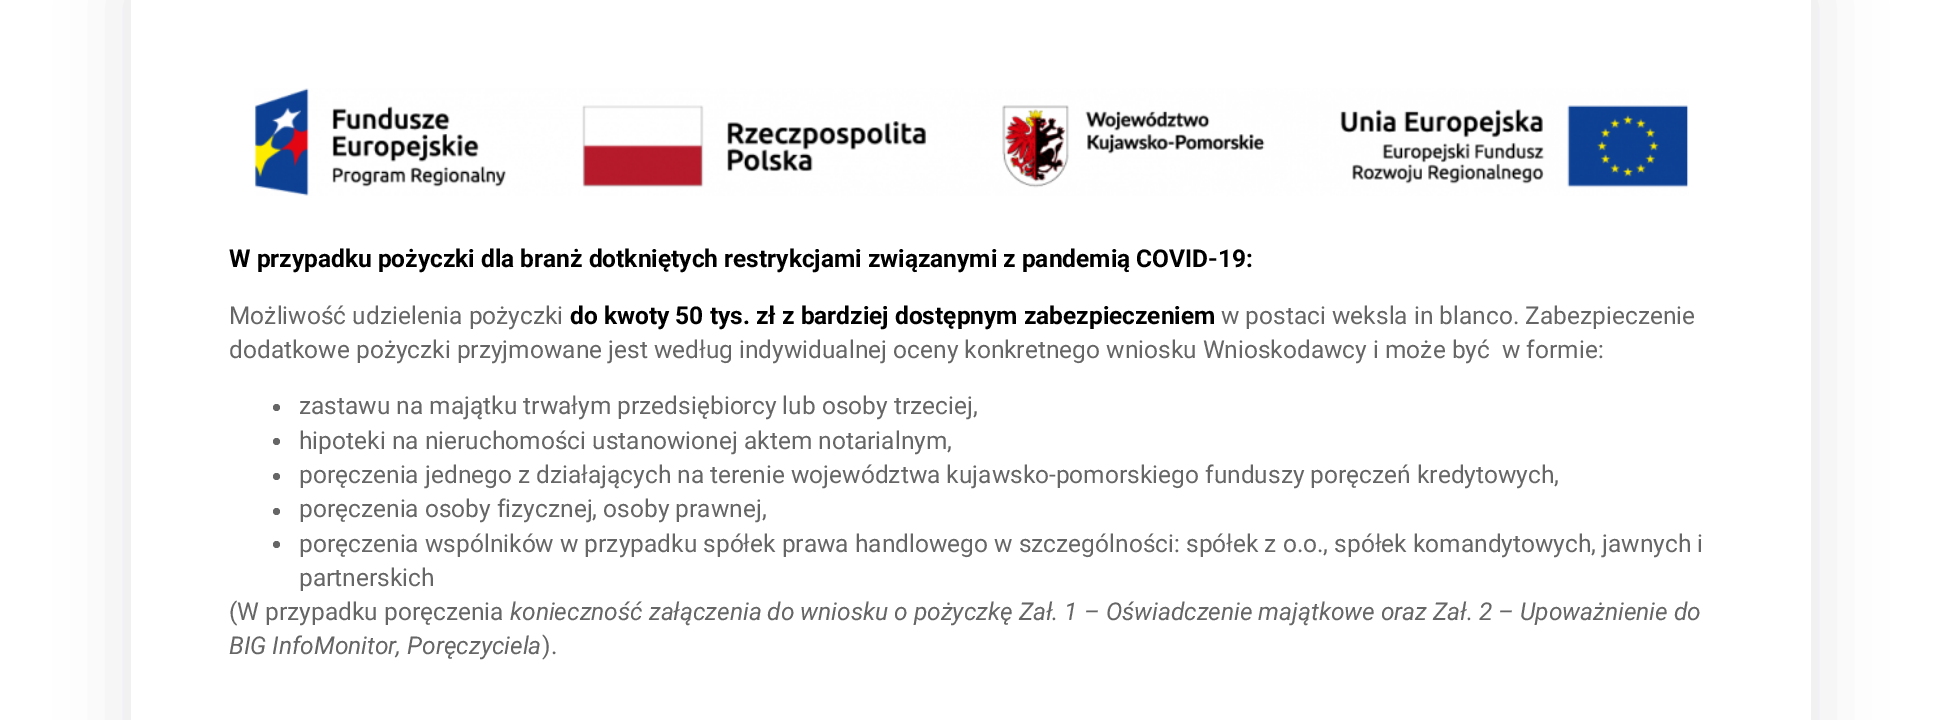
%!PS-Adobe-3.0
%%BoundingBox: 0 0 1942 720
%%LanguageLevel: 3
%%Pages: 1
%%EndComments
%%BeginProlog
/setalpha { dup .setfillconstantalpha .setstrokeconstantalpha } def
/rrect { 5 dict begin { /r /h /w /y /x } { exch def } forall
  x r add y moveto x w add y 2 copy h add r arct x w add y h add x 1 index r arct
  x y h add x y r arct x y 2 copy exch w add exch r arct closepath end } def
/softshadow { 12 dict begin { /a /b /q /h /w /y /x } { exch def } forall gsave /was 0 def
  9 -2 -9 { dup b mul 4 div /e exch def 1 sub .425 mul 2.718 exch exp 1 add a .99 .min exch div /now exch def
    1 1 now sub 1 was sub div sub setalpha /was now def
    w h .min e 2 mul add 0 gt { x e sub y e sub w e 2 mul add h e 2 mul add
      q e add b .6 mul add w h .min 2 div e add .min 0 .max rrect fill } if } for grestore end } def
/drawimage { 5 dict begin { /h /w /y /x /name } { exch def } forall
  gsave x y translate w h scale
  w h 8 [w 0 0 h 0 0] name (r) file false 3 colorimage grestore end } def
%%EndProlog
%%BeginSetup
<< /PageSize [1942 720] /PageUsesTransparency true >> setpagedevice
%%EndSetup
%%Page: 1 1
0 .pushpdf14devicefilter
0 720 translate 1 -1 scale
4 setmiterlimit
1 setgray
0 0 1942 720 rectfill
gsave
newpath 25 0 moveto 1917 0 lineto 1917 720 lineto 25 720 lineto closepath 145 -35 moveto 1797 -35 lineto 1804.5 -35 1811 -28.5 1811 -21 curveto 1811 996 lineto 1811 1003.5 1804.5 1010 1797 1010 curveto 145 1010 lineto 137.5 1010 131 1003.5 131 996 curveto 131 -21 lineto 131 -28.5 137.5 -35 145 -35 curveto closepath eoclip newpath
0.086 0.11 0.176 setrgbcolor
131 -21 1680 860 14 35 0.12 softshadow
grestore
(images/1.raw) 254 88 1435 108 drawimage
0.4 setgray
newpath 276.5 407.5 3.5 0 360 arc closepath fill
newpath 276.5 441.5 3.5 0 360 arc closepath fill
newpath 276.5 476.5 3.5 0 360 arc closepath fill
newpath 276.5 511.5 3.5 0 360 arc closepath fill
newpath 276.5 544.5 3.5 0 360 arc closepath fill
/Roboto-Bold [24.5 0 0 -24.5 0 0] selectfont
0 setgray
229 267 moveto (W przypadku pożyczki dla branż dotkniętych restrykcjami związanymi z pandemią COVID-19:) show
/Roboto-Regular [24.5 0 0 -24.5 0 0] selectfont
0.4 setgray
229 324 moveto (Możliwość udzielenia pożyczki) show
/Roboto-Bold [24.5 0 0 -24.5 0 0] selectfont
0 setgray
570 324 moveto (do kwoty 50 tys. zł z bardziej dostępnym zabezpieczeniem) show
/Roboto-Regular [24.5 0 0 -24.5 0 0] selectfont
0.4 setgray
1221 324 moveto (w postaci weksla in blanco. Zabezpieczenie) show
229 358 moveto (dodatkowe pożyczki przyjmowane jest według indywidualnej oceny konkretnego wniosku Wnioskodawcy i może być  w formie:) show
299 414 moveto (zastawu na majątku trwałym przedsiębiorcy lub osoby trzeciej,) show
299 449 moveto (hipoteki na nieruchomości ustanowionej aktem notarialnym,) show
299 483 moveto (poręczenia jednego z działających na terenie województwa kujawsko-pomorskiego funduszy poręczeń kredytowych,) show
299 517 moveto (poręczenia osoby fizycznej, osoby prawnej,) show
299 552 moveto (poręczenia wspólników w przypadku spółek prawa handlowego w szczególności: spółek z o.o., spółek komandytowych, jawnych i) show
299 586 moveto (partnerskich) show
229 620 moveto (\(W przypadku poręczenia) show
/Roboto-Italic [24.5 0 0 -24.5 0 0] selectfont
510 620 moveto (konieczność załączenia do wniosku o pożyczkę Zał. 1 – Oświadczenie majątkowe oraz Zał. 2 – Upoważnienie do) show
229 654 moveto (BIG InfoMonitor, Poręczyciela) show
/Roboto-Regular [24.5 0 0 -24.5 0 0] selectfont
542 654 moveto (\).) show
.poppdf14devicefilter showpage
%%EOF
